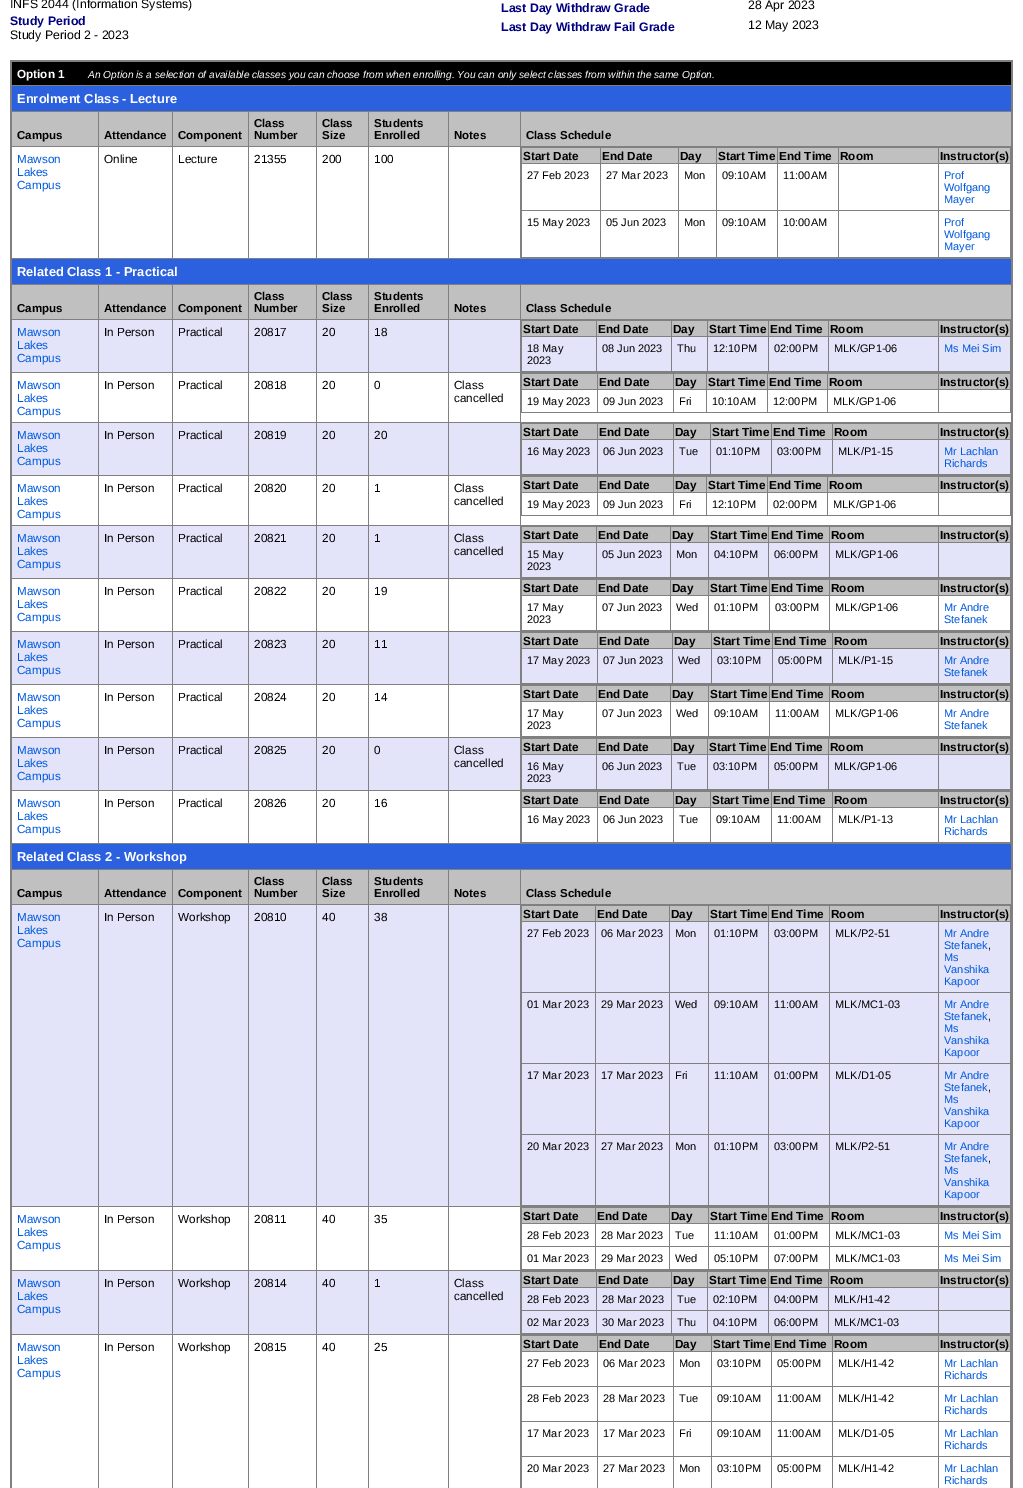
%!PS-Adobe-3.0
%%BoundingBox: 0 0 1023 1488
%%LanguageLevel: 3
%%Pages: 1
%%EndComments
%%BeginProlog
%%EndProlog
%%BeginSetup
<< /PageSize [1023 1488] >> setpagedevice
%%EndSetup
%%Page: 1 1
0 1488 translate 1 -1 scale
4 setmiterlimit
1 setgray
0 0 1023 1488 rectfill
0.502 setgray
10 60 1003 2 rectfill
11 85 1002 1 rectfill
11 111 1002 1 rectfill
11 146 1002 1 rectfill
11 258 1002 1 rectfill
11 284 1002 1 rectfill
11 319 1002 1 rectfill
11 372 1002 1 rectfill
11 422 1002 1 rectfill
11 475 1002 1 rectfill
11 525 1002 1 rectfill
11 578 1002 1 rectfill
11 631 1002 1 rectfill
11 684 1002 1 rectfill
11 737 1002 1 rectfill
11 790 1002 1 rectfill
11 843 1002 1 rectfill
11 869 1002 1 rectfill
11 904 1002 1 rectfill
11 1206 1002 1 rectfill
11 1270 1002 1 rectfill
11 1334 1002 1 rectfill
1011 60 2 1428 rectfill
10 60 2 1428 rectfill
0 setgray
12 62 999 23 rectfill
0.169 0.376 0.871 setrgbcolor
12 86 999 25 rectfill
0.753 setgray
12 112 999 34 rectfill
0.502 setgray
98 111 1 148 rectfill
172 111 1 148 rectfill
248 111 1 148 rectfill
316 111 1 148 rectfill
368 111 1 148 rectfill
448 111 1 148 rectfill
520 111 1 148 rectfill
521 147 490 1 rectfill
1010 147 1 111 rectfill
521 257 490 1 rectfill
521 147 1 111 rectfill
0.753 setgray
522 148 488 15 rectfill
0.502 setgray
521 163 490 1 rectfill
521 210 490 1 rectfill
600 147 1 111 rectfill
678 147 1 111 rectfill
716 147 1 111 rectfill
777 147 1 111 rectfill
838 147 1 111 rectfill
938 147 1 111 rectfill
0.169 0.376 0.871 setrgbcolor
12 259 999 25 rectfill
0.753 setgray
12 285 999 34 rectfill
0.89 0.894 0.98 setrgbcolor
12 320 998 52 rectfill
0.502 setgray
521 320 490 1 rectfill
1010 320 1 52 rectfill
521 371 490 1 rectfill
521 320 1 52 rectfill
0.753 setgray
522 321 488 15 rectfill
0.502 setgray
521 336 490 1 rectfill
596 320 1 52 rectfill
671 320 1 52 rectfill
707 320 1 52 rectfill
768 320 1 52 rectfill
828 320 1 52 rectfill
938 320 1 52 rectfill
521 373 490 1 rectfill
1010 373 1 40 rectfill
521 412 490 1 rectfill
521 373 1 40 rectfill
0.753 setgray
522 374 488 15 rectfill
0.502 setgray
521 389 490 1 rectfill
597 373 1 40 rectfill
673 373 1 40 rectfill
706 373 1 40 rectfill
767 373 1 40 rectfill
827 373 1 40 rectfill
938 373 1 40 rectfill
0.89 0.894 0.98 setrgbcolor
12 423 998 52 rectfill
0.502 setgray
521 423 490 1 rectfill
1010 423 1 52 rectfill
521 474 490 1 rectfill
521 423 1 52 rectfill
0.753 setgray
522 424 488 15 rectfill
0.502 setgray
521 439 490 1 rectfill
597 423 1 52 rectfill
673 423 1 52 rectfill
710 423 1 52 rectfill
771 423 1 52 rectfill
832 423 1 52 rectfill
938 423 1 52 rectfill
521 476 490 1 rectfill
1010 476 1 40 rectfill
521 515 490 1 rectfill
521 476 1 40 rectfill
0.753 setgray
522 477 488 15 rectfill
0.502 setgray
521 492 490 1 rectfill
597 476 1 40 rectfill
673 476 1 40 rectfill
706 476 1 40 rectfill
767 476 1 40 rectfill
827 476 1 40 rectfill
938 476 1 40 rectfill
0.89 0.894 0.98 setrgbcolor
12 526 998 52 rectfill
0.502 setgray
521 526 490 1 rectfill
1010 526 1 52 rectfill
521 577 490 1 rectfill
521 526 1 52 rectfill
0.753 setgray
522 527 488 15 rectfill
0.502 setgray
521 542 490 1 rectfill
596 526 1 52 rectfill
670 526 1 52 rectfill
708 526 1 52 rectfill
768 526 1 52 rectfill
829 526 1 52 rectfill
938 526 1 52 rectfill
521 579 490 1 rectfill
1010 579 1 52 rectfill
521 630 490 1 rectfill
521 579 1 52 rectfill
0.753 setgray
522 580 488 15 rectfill
0.502 setgray
521 595 490 1 rectfill
596 579 1 52 rectfill
670 579 1 52 rectfill
708 579 1 52 rectfill
769 579 1 52 rectfill
829 579 1 52 rectfill
938 579 1 52 rectfill
0.89 0.894 0.98 setrgbcolor
12 632 998 52 rectfill
0.502 setgray
521 632 490 1 rectfill
1010 632 1 52 rectfill
521 683 490 1 rectfill
521 632 1 52 rectfill
0.753 setgray
522 633 488 15 rectfill
0.502 setgray
521 648 490 1 rectfill
597 632 1 52 rectfill
672 632 1 52 rectfill
711 632 1 52 rectfill
772 632 1 52 rectfill
832 632 1 52 rectfill
938 632 1 52 rectfill
521 685 490 1 rectfill
1010 685 1 52 rectfill
521 736 490 1 rectfill
521 685 1 52 rectfill
0.753 setgray
522 686 488 15 rectfill
0.502 setgray
521 701 490 1 rectfill
596 685 1 52 rectfill
670 685 1 52 rectfill
708 685 1 52 rectfill
769 685 1 52 rectfill
829 685 1 52 rectfill
938 685 1 52 rectfill
0.89 0.894 0.98 setrgbcolor
12 738 998 52 rectfill
0.502 setgray
521 738 490 1 rectfill
1010 738 1 52 rectfill
521 789 490 1 rectfill
521 738 1 52 rectfill
0.753 setgray
522 739 488 15 rectfill
0.502 setgray
521 754 490 1 rectfill
596 738 1 52 rectfill
671 738 1 52 rectfill
707 738 1 52 rectfill
768 738 1 52 rectfill
828 738 1 52 rectfill
938 738 1 52 rectfill
98 284 1 560 rectfill
172 284 1 560 rectfill
248 284 1 560 rectfill
316 284 1 560 rectfill
368 284 1 560 rectfill
448 284 1 560 rectfill
520 284 1 560 rectfill
521 791 490 1 rectfill
1010 791 1 52 rectfill
521 842 490 1 rectfill
521 791 1 52 rectfill
0.753 setgray
522 792 488 15 rectfill
0.502 setgray
521 807 490 1 rectfill
597 791 1 52 rectfill
673 791 1 52 rectfill
710 791 1 52 rectfill
771 791 1 52 rectfill
832 791 1 52 rectfill
938 791 1 52 rectfill
0.169 0.376 0.871 setrgbcolor
12 844 999 25 rectfill
0.753 setgray
12 870 999 34 rectfill
0.89 0.894 0.98 setrgbcolor
12 905 998 301 rectfill
0.502 setgray
521 905 490 1 rectfill
1010 905 1 301 rectfill
521 1205 490 1 rectfill
521 905 1 301 rectfill
0.753 setgray
522 906 488 15 rectfill
0.502 setgray
521 921 490 1 rectfill
521 992 490 1 rectfill
521 1063 490 1 rectfill
521 1134 490 1 rectfill
595 905 1 301 rectfill
669 905 1 301 rectfill
708 905 1 301 rectfill
768 905 1 301 rectfill
829 905 1 301 rectfill
938 905 1 301 rectfill
521 1207 490 1 rectfill
1010 1207 1 63 rectfill
521 1269 490 1 rectfill
521 1207 1 63 rectfill
0.753 setgray
522 1208 488 15 rectfill
0.502 setgray
521 1223 490 1 rectfill
521 1246 490 1 rectfill
595 1207 1 63 rectfill
669 1207 1 63 rectfill
708 1207 1 63 rectfill
768 1207 1 63 rectfill
829 1207 1 63 rectfill
938 1207 1 63 rectfill
0.89 0.894 0.98 setrgbcolor
12 1271 998 63 rectfill
0.502 setgray
521 1271 490 1 rectfill
1010 1271 1 63 rectfill
521 1333 490 1 rectfill
521 1271 1 63 rectfill
0.753 setgray
522 1272 488 15 rectfill
0.502 setgray
521 1287 490 1 rectfill
521 1310 490 1 rectfill
596 1271 1 63 rectfill
671 1271 1 63 rectfill
707 1271 1 63 rectfill
768 1271 1 63 rectfill
828 1271 1 63 rectfill
938 1271 1 63 rectfill
98 869 1 619 rectfill
172 869 1 619 rectfill
248 869 1 619 rectfill
316 869 1 619 rectfill
368 869 1 619 rectfill
448 869 1 619 rectfill
520 869 1 619 rectfill
521 1335 490 1 rectfill
1010 1335 1 153 rectfill
521 1335 1 153 rectfill
0.753 setgray
522 1336 488 15 rectfill
0.502 setgray
521 1351 490 1 rectfill
521 1386 490 1 rectfill
521 1421 490 1 rectfill
521 1456 490 1 rectfill
597 1335 1 153 rectfill
673 1335 1 153 rectfill
711 1335 1 153 rectfill
771 1335 1 153 rectfill
832 1335 1 153 rectfill
938 1335 1 153 rectfill
/LiberationSans-Regular [12.3 0 0 -12.3 0 0] selectfont
0 setgray
10 8 moveto (INFS 2044 \(Information Systems\)) show
/LiberationSans-Bold [12.3 0 0 -12.3 0 0] selectfont
0 0 0.502 setrgbcolor
10 25 moveto (Study Period) show
/LiberationSans-Regular [12.3 0 0 -12.3 0 0] selectfont
0 setgray
10 39 moveto (Study Period 2 - 2023) show
/LiberationSans-Bold [12.3 0 0 -12.3 0 0] selectfont
0 0 0.502 setrgbcolor
501 12 moveto (Last Day Withdraw Grade) show
/LiberationSans-Regular [12.3 0 0 -12.3 0 0] selectfont
0 setgray
748 9 moveto (28 Apr 2023) show
/LiberationSans-Bold [12.3 0 0 -12.3 0 0] selectfont
0 0 0.502 setrgbcolor
501 31 moveto (Last Day Withdraw Fail Grade) show
/LiberationSans-Regular [12.3 0 0 -12.3 0 0] selectfont
0 setgray
748 29 moveto (12 May 2023) show
/LiberationSans-Bold [11.75 0 0 -11.75 0 0] selectfont
1 setgray
17 78 moveto (Option 1) show
/LiberationSans-Italic [10.18 0 0 -10.18 0 0] selectfont
88 78 moveto (An Option is a selection of available classes you can choose from when enrolling. You can only select classes from within the same Option.) show
/LiberationSans-Bold [12.9 0 0 -12.9 0 0] selectfont
17 103 moveto (Enrolment Class - Lecture) show
/LiberationSans-Bold [11.5 0 0 -11.5 0 0] selectfont
0 setgray
17 139 moveto (Campus) show
104 139 moveto (Attendance) show
178 139 moveto (Component) show
254 127 moveto (Class) show
254 139 moveto (Number) show
322 127 moveto (Class) show
322 139 moveto (Size) show
374 127 moveto (Students) show
374 139 moveto (Enrolled) show
454 139 moveto (Notes) show
526 139 moveto (Class Schedule) show
/LiberationSans-Regular [11.75 0 0 -11.75 0 0] selectfont
0 0.353 0.867 setrgbcolor
17 163 moveto (Mawson) show
17 176 moveto (Lakes) show
17 189 moveto (Campus) show
0 setgray
104 163 moveto (Online) show
178 163 moveto (Lecture) show
254 163 moveto (21355) show
322 163 moveto (200) show
374 163 moveto (100) show
/LiberationSans-Bold [11.75 0 0 -11.75 0 0] selectfont
523 160 moveto (Start Date) show
602 160 moveto (End Date) show
680 160 moveto (Day) show
718 160 moveto (Start Time) show
779 160 moveto (End Time) show
840 160 moveto (Room) show
940 160 moveto (Instructor\(s\)) show
/LiberationSans-Regular [11 0 0 -11 0 0] selectfont
527 179 moveto (27 Feb 2023) show
606 179 moveto (27 Mar 2023) show
684 179 moveto (Mon) show
722 179 moveto (09:10AM) show
783 179 moveto (11:00AM) show
0 0.353 0.867 setrgbcolor
944 179 moveto (Prof) show
944 191 moveto (Wolfgang) show
944 203 moveto (Mayer) show
0 setgray
527 226 moveto (15 May 2023) show
606 226 moveto (05 Jun 2023) show
684 226 moveto (Mon) show
722 226 moveto (09:10AM) show
783 226 moveto (10:00AM) show
0 0.353 0.867 setrgbcolor
944 226 moveto (Prof) show
944 238 moveto (Wolfgang) show
944 250 moveto (Mayer) show
/LiberationSans-Bold [12.9 0 0 -12.9 0 0] selectfont
1 setgray
17 276 moveto (Related Class 1 - Practical) show
/LiberationSans-Bold [11.5 0 0 -11.5 0 0] selectfont
0 setgray
17 312 moveto (Campus) show
104 312 moveto (Attendance) show
178 312 moveto (Component) show
254 300 moveto (Class) show
254 312 moveto (Number) show
322 300 moveto (Class) show
322 312 moveto (Size) show
374 300 moveto (Students) show
374 312 moveto (Enrolled) show
454 312 moveto (Notes) show
526 312 moveto (Class Schedule) show
/LiberationSans-Regular [11.75 0 0 -11.75 0 0] selectfont
0 0.353 0.867 setrgbcolor
17 336 moveto (Mawson) show
17 349 moveto (Lakes) show
17 362 moveto (Campus) show
0 setgray
104 336 moveto (In Person) show
178 336 moveto (Practical) show
254 336 moveto (20817) show
322 336 moveto (20) show
374 336 moveto (18) show
/LiberationSans-Bold [11.75 0 0 -11.75 0 0] selectfont
523 333 moveto (Start Date) show
598 333 moveto (End Date) show
673 333 moveto (Day) show
709 333 moveto (Start Time End Time) show
830 333 moveto (Room) show
940 333 moveto (Instructor\(s\)) show
/LiberationSans-Regular [11 0 0 -11 0 0] selectfont
527 352 moveto (18 May) show
527 364 moveto (2023) show
602 352 moveto (08 Jun 2023) show
677 352 moveto (Thu) show
713 352 moveto (12:10PM) show
774 352 moveto (02:00PM) show
834 352 moveto (MLK/GP1-06) show
0 0.353 0.867 setrgbcolor
944 352 moveto (Ms Mei Sim) show
/LiberationSans-Regular [11.75 0 0 -11.75 0 0] selectfont
17 389 moveto (Mawson) show
17 402 moveto (Lakes) show
17 415 moveto (Campus) show
0 setgray
104 389 moveto (In Person) show
178 389 moveto (Practical) show
254 389 moveto (20818) show
322 389 moveto (20) show
374 389 moveto (0) show
454 389 moveto (Class) show
454 402 moveto (cancelled) show
/LiberationSans-Bold [11.75 0 0 -11.75 0 0] selectfont
523 386 moveto (Start Date) show
599 386 moveto (End Date) show
675 386 moveto (Day) show
708 386 moveto (Start Time End Time) show
829 386 moveto (Room) show
940 386 moveto (Instructor\(s\)) show
/LiberationSans-Regular [11 0 0 -11 0 0] selectfont
527 405 moveto (19 May 2023) show
603 405 moveto (09 Jun 2023) show
679 405 moveto (Fri) show
712 405 moveto (10:10AM) show
773 405 moveto (12:00PM) show
833 405 moveto (MLK/GP1-06) show
/LiberationSans-Regular [11.75 0 0 -11.75 0 0] selectfont
0 0.353 0.867 setrgbcolor
17 439 moveto (Mawson) show
17 452 moveto (Lakes) show
17 465 moveto (Campus) show
0 setgray
104 439 moveto (In Person) show
178 439 moveto (Practical) show
254 439 moveto (20819) show
322 439 moveto (20) show
374 439 moveto (20) show
/LiberationSans-Bold [11.75 0 0 -11.75 0 0] selectfont
523 436 moveto (Start Date) show
599 436 moveto (End Date) show
675 436 moveto (Day) show
712 436 moveto (Start Time End Time) show
834 436 moveto (Room) show
940 436 moveto (Instructor\(s\)) show
/LiberationSans-Regular [11 0 0 -11 0 0] selectfont
527 455 moveto (16 May 2023) show
603 455 moveto (06 Jun 2023) show
679 455 moveto (Tue) show
716 455 moveto (01:10PM) show
777 455 moveto (03:00PM) show
838 455 moveto (MLK/P1-15) show
0 0.353 0.867 setrgbcolor
944 455 moveto (Mr Lachlan) show
944 467 moveto (Richards) show
/LiberationSans-Regular [11.75 0 0 -11.75 0 0] selectfont
17 492 moveto (Mawson) show
17 505 moveto (Lakes) show
17 518 moveto (Campus) show
0 setgray
104 492 moveto (In Person) show
178 492 moveto (Practical) show
254 492 moveto (20820) show
322 492 moveto (20) show
374 492 moveto (1) show
454 492 moveto (Class) show
454 505 moveto (cancelled) show
/LiberationSans-Bold [11.75 0 0 -11.75 0 0] selectfont
523 489 moveto (Start Date) show
599 489 moveto (End Date) show
675 489 moveto (Day) show
708 489 moveto (Start Time End Time) show
829 489 moveto (Room) show
940 489 moveto (Instructor\(s\)) show
/LiberationSans-Regular [11 0 0 -11 0 0] selectfont
527 508 moveto (19 May 2023) show
603 508 moveto (09 Jun 2023) show
679 508 moveto (Fri) show
712 508 moveto (12:10PM) show
773 508 moveto (02:00PM) show
833 508 moveto (MLK/GP1-06) show
/LiberationSans-Regular [11.75 0 0 -11.75 0 0] selectfont
0 0.353 0.867 setrgbcolor
17 542 moveto (Mawson) show
17 555 moveto (Lakes) show
17 568 moveto (Campus) show
0 setgray
104 542 moveto (In Person) show
178 542 moveto (Practical) show
254 542 moveto (20821) show
322 542 moveto (20) show
374 542 moveto (1) show
454 542 moveto (Class) show
454 555 moveto (cancelled) show
/LiberationSans-Bold [11.75 0 0 -11.75 0 0] selectfont
523 539 moveto (Start Date) show
598 539 moveto (End Date) show
672 539 moveto (Day) show
710 539 moveto (Start Time End Time) show
831 539 moveto (Room) show
940 539 moveto (Instructor\(s\)) show
/LiberationSans-Regular [11 0 0 -11 0 0] selectfont
527 558 moveto (15 May) show
527 570 moveto (2023) show
602 558 moveto (05 Jun 2023) show
676 558 moveto (Mon) show
714 558 moveto (04:10PM) show
774 558 moveto (06:00PM) show
835 558 moveto (MLK/GP1-06) show
/LiberationSans-Regular [11.75 0 0 -11.75 0 0] selectfont
0 0.353 0.867 setrgbcolor
17 595 moveto (Mawson) show
17 608 moveto (Lakes) show
17 621 moveto (Campus) show
0 setgray
104 595 moveto (In Person) show
178 595 moveto (Practical) show
254 595 moveto (20822) show
322 595 moveto (20) show
374 595 moveto (19) show
/LiberationSans-Bold [11.75 0 0 -11.75 0 0] selectfont
523 592 moveto (Start Date) show
598 592 moveto (End Date) show
672 592 moveto (Day) show
710 592 moveto (Start Time End Time) show
831 592 moveto (Room) show
940 592 moveto (Instructor\(s\)) show
/LiberationSans-Regular [11 0 0 -11 0 0] selectfont
527 611 moveto (17 May) show
527 623 moveto (2023) show
602 611 moveto (07 Jun 2023) show
676 611 moveto (Wed) show
714 611 moveto (01:10PM) show
775 611 moveto (03:00PM) show
835 611 moveto (MLK/GP1-06) show
0 0.353 0.867 setrgbcolor
944 611 moveto (Mr Andre) show
944 623 moveto (Stefanek) show
/LiberationSans-Regular [11.75 0 0 -11.75 0 0] selectfont
17 648 moveto (Mawson) show
17 661 moveto (Lakes) show
17 674 moveto (Campus) show
0 setgray
104 648 moveto (In Person) show
178 648 moveto (Practical) show
254 648 moveto (20823) show
322 648 moveto (20) show
374 648 moveto (11) show
/LiberationSans-Bold [11.75 0 0 -11.75 0 0] selectfont
523 645 moveto (Start Date) show
599 645 moveto (End Date) show
674 645 moveto (Day) show
713 645 moveto (Start Time End Time) show
834 645 moveto (Room) show
940 645 moveto (Instructor\(s\)) show
/LiberationSans-Regular [11 0 0 -11 0 0] selectfont
527 664 moveto (17 May 2023) show
603 664 moveto (07 Jun 2023) show
678 664 moveto (Wed) show
717 664 moveto (03:10PM) show
778 664 moveto (05:00PM) show
838 664 moveto (MLK/P1-15) show
0 0.353 0.867 setrgbcolor
944 664 moveto (Mr Andre) show
944 676 moveto (Stefanek) show
/LiberationSans-Regular [11.75 0 0 -11.75 0 0] selectfont
17 701 moveto (Mawson) show
17 714 moveto (Lakes) show
17 727 moveto (Campus) show
0 setgray
104 701 moveto (In Person) show
178 701 moveto (Practical) show
254 701 moveto (20824) show
322 701 moveto (20) show
374 701 moveto (14) show
/LiberationSans-Bold [11.75 0 0 -11.75 0 0] selectfont
523 698 moveto (Start Date) show
598 698 moveto (End Date) show
672 698 moveto (Day) show
710 698 moveto (Start Time End Time) show
831 698 moveto (Room) show
940 698 moveto (Instructor\(s\)) show
/LiberationSans-Regular [11 0 0 -11 0 0] selectfont
527 717 moveto (17 May) show
527 729 moveto (2023) show
602 717 moveto (07 Jun 2023) show
676 717 moveto (Wed) show
714 717 moveto (09:10AM) show
775 717 moveto (11:00AM) show
835 717 moveto (MLK/GP1-06) show
0 0.353 0.867 setrgbcolor
944 717 moveto (Mr Andre) show
944 729 moveto (Stefanek) show
/LiberationSans-Regular [11.75 0 0 -11.75 0 0] selectfont
17 754 moveto (Mawson) show
17 767 moveto (Lakes) show
17 780 moveto (Campus) show
0 setgray
104 754 moveto (In Person) show
178 754 moveto (Practical) show
254 754 moveto (20825) show
322 754 moveto (20) show
374 754 moveto (0) show
454 754 moveto (Class) show
454 767 moveto (cancelled) show
/LiberationSans-Bold [11.75 0 0 -11.75 0 0] selectfont
523 751 moveto (Start Date) show
598 751 moveto (End Date) show
673 751 moveto (Day) show
709 751 moveto (Start Time End Time) show
830 751 moveto (Room) show
940 751 moveto (Instructor\(s\)) show
/LiberationSans-Regular [11 0 0 -11 0 0] selectfont
527 770 moveto (16 May) show
527 782 moveto (2023) show
602 770 moveto (06 Jun 2023) show
677 770 moveto (Tue) show
713 770 moveto (03:10PM) show
774 770 moveto (05:00PM) show
834 770 moveto (MLK/GP1-06) show
/LiberationSans-Regular [11.75 0 0 -11.75 0 0] selectfont
0 0.353 0.867 setrgbcolor
17 807 moveto (Mawson) show
17 820 moveto (Lakes) show
17 833 moveto (Campus) show
0 setgray
104 807 moveto (In Person) show
178 807 moveto (Practical) show
254 807 moveto (20826) show
322 807 moveto (20) show
374 807 moveto (16) show
/LiberationSans-Bold [11.75 0 0 -11.75 0 0] selectfont
523 804 moveto (Start Date) show
599 804 moveto (End Date) show
675 804 moveto (Day) show
712 804 moveto (Start Time End Time) show
834 804 moveto (Room) show
940 804 moveto (Instructor\(s\)) show
/LiberationSans-Regular [11 0 0 -11 0 0] selectfont
527 823 moveto (16 May 2023) show
603 823 moveto (06 Jun 2023) show
679 823 moveto (Tue) show
716 823 moveto (09:10AM) show
777 823 moveto (11:00AM) show
838 823 moveto (MLK/P1-13) show
0 0.353 0.867 setrgbcolor
944 823 moveto (Mr Lachlan) show
944 835 moveto (Richards) show
/LiberationSans-Bold [12.9 0 0 -12.9 0 0] selectfont
1 setgray
17 861 moveto (Related Class 2 - Workshop) show
/LiberationSans-Bold [11.5 0 0 -11.5 0 0] selectfont
0 setgray
17 897 moveto (Campus) show
104 897 moveto (Attendance) show
178 897 moveto (Component) show
254 885 moveto (Class) show
254 897 moveto (Number) show
322 885 moveto (Class) show
322 897 moveto (Size) show
374 885 moveto (Students) show
374 897 moveto (Enrolled) show
454 897 moveto (Notes) show
526 897 moveto (Class Schedule) show
/LiberationSans-Regular [11.75 0 0 -11.75 0 0] selectfont
0 0.353 0.867 setrgbcolor
17 921 moveto (Mawson) show
17 934 moveto (Lakes) show
17 947 moveto (Campus) show
0 setgray
104 921 moveto (In Person) show
178 921 moveto (Workshop) show
254 921 moveto (20810) show
322 921 moveto (40) show
374 921 moveto (38) show
/LiberationSans-Bold [11.75 0 0 -11.75 0 0] selectfont
523 918 moveto (Start Date) show
597 918 moveto (End Date) show
671 918 moveto (Day) show
710 918 moveto (Start Time End Time) show
831 918 moveto (Room) show
940 918 moveto (Instructor\(s\)) show
/LiberationSans-Regular [11 0 0 -11 0 0] selectfont
527 937 moveto (27 Feb 2023) show
601 937 moveto (06 Mar 2023) show
675 937 moveto (Mon) show
714 937 moveto (01:10PM) show
774 937 moveto (03:00PM) show
835 937 moveto (MLK/P2-51) show
0 0.353 0.867 setrgbcolor
944 937 moveto (Mr Andre) show
944 949 moveto (Stefanek) show
0 setgray
988 949 moveto (,) show
0 0.353 0.867 setrgbcolor
944 961 moveto (Ms) show
944 973 moveto (Vanshika) show
944 985 moveto (Kapoor) show
0 setgray
527 1008 moveto (01 Mar 2023) show
601 1008 moveto (29 Mar 2023) show
675 1008 moveto (Wed) show
714 1008 moveto (09:10AM) show
774 1008 moveto (11:00AM) show
835 1008 moveto (MLK/MC1-03) show
0 0.353 0.867 setrgbcolor
944 1008 moveto (Mr Andre) show
944 1020 moveto (Stefanek) show
0 setgray
988 1020 moveto (,) show
0 0.353 0.867 setrgbcolor
944 1032 moveto (Ms) show
944 1044 moveto (Vanshika) show
944 1056 moveto (Kapoor) show
0 setgray
527 1079 moveto (17 Mar 2023) show
601 1079 moveto (17 Mar 2023) show
675 1079 moveto (Fri) show
714 1079 moveto (11:10AM) show
774 1079 moveto (01:00PM) show
835 1079 moveto (MLK/D1-05) show
0 0.353 0.867 setrgbcolor
944 1079 moveto (Mr Andre) show
944 1091 moveto (Stefanek) show
0 setgray
988 1091 moveto (,) show
0 0.353 0.867 setrgbcolor
944 1103 moveto (Ms) show
944 1115 moveto (Vanshika) show
944 1127 moveto (Kapoor) show
0 setgray
527 1150 moveto (20 Mar 2023) show
601 1150 moveto (27 Mar 2023) show
675 1150 moveto (Mon) show
714 1150 moveto (01:10PM) show
774 1150 moveto (03:00PM) show
835 1150 moveto (MLK/P2-51) show
0 0.353 0.867 setrgbcolor
944 1150 moveto (Mr Andre) show
944 1162 moveto (Stefanek) show
0 setgray
988 1162 moveto (,) show
0 0.353 0.867 setrgbcolor
944 1174 moveto (Ms) show
944 1186 moveto (Vanshika) show
944 1198 moveto (Kapoor) show
/LiberationSans-Regular [11.75 0 0 -11.75 0 0] selectfont
17 1223 moveto (Mawson) show
17 1236 moveto (Lakes) show
17 1249 moveto (Campus) show
0 setgray
104 1223 moveto (In Person) show
178 1223 moveto (Workshop) show
254 1223 moveto (20811) show
322 1223 moveto (40) show
374 1223 moveto (35) show
/LiberationSans-Bold [11.75 0 0 -11.75 0 0] selectfont
523 1220 moveto (Start Date) show
597 1220 moveto (End Date) show
671 1220 moveto (Day) show
710 1220 moveto (Start Time End Time) show
831 1220 moveto (Room) show
940 1220 moveto (Instructor\(s\)) show
/LiberationSans-Regular [11 0 0 -11 0 0] selectfont
527 1239 moveto (28 Feb 2023) show
601 1239 moveto (28 Mar 2023) show
675 1239 moveto (Tue) show
714 1239 moveto (11:10AM) show
774 1239 moveto (01:00PM) show
835 1239 moveto (MLK/MC1-03) show
0 0.353 0.867 setrgbcolor
944 1239 moveto (Ms Mei Sim) show
0 setgray
527 1262 moveto (01 Mar 2023) show
601 1262 moveto (29 Mar 2023) show
675 1262 moveto (Wed) show
714 1262 moveto (05:10PM) show
774 1262 moveto (07:00PM) show
835 1262 moveto (MLK/MC1-03) show
0 0.353 0.867 setrgbcolor
944 1262 moveto (Ms Mei Sim) show
/LiberationSans-Regular [11.75 0 0 -11.75 0 0] selectfont
17 1287 moveto (Mawson) show
17 1300 moveto (Lakes) show
17 1313 moveto (Campus) show
0 setgray
104 1287 moveto (In Person) show
178 1287 moveto (Workshop) show
254 1287 moveto (20814) show
322 1287 moveto (40) show
374 1287 moveto (1) show
454 1287 moveto (Class) show
454 1300 moveto (cancelled) show
/LiberationSans-Bold [11.75 0 0 -11.75 0 0] selectfont
523 1284 moveto (Start Date) show
598 1284 moveto (End Date) show
673 1284 moveto (Day) show
709 1284 moveto (Start Time End Time) show
830 1284 moveto (Room) show
940 1284 moveto (Instructor\(s\)) show
/LiberationSans-Regular [11 0 0 -11 0 0] selectfont
527 1303 moveto (28 Feb 2023) show
602 1303 moveto (28 Mar 2023) show
677 1303 moveto (Tue) show
713 1303 moveto (02:10PM) show
774 1303 moveto (04:00PM) show
834 1303 moveto (MLK/H1-42) show
527 1326 moveto (02 Mar 2023) show
602 1326 moveto (30 Mar 2023) show
677 1326 moveto (Thu) show
713 1326 moveto (04:10PM) show
774 1326 moveto (06:00PM) show
834 1326 moveto (MLK/MC1-03) show
/LiberationSans-Regular [11.75 0 0 -11.75 0 0] selectfont
0 0.353 0.867 setrgbcolor
17 1351 moveto (Mawson) show
17 1364 moveto (Lakes) show
17 1377 moveto (Campus) show
0 setgray
104 1351 moveto (In Person) show
178 1351 moveto (Workshop) show
254 1351 moveto (20815) show
322 1351 moveto (40) show
374 1351 moveto (25) show
/LiberationSans-Bold [11.75 0 0 -11.75 0 0] selectfont
523 1348 moveto (Start Date) show
599 1348 moveto (End Date) show
675 1348 moveto (Day) show
713 1348 moveto (Start Time End Time) show
834 1348 moveto (Room) show
940 1348 moveto (Instructor\(s\)) show
/LiberationSans-Regular [11 0 0 -11 0 0] selectfont
527 1367 moveto (27 Feb 2023) show
603 1367 moveto (06 Mar 2023) show
679 1367 moveto (Mon) show
717 1367 moveto (03:10PM) show
777 1367 moveto (05:00PM) show
838 1367 moveto (MLK/H1-42) show
0 0.353 0.867 setrgbcolor
944 1367 moveto (Mr Lachlan) show
944 1379 moveto (Richards) show
0 setgray
527 1402 moveto (28 Feb 2023) show
603 1402 moveto (28 Mar 2023) show
679 1402 moveto (Tue) show
717 1402 moveto (09:10AM) show
777 1402 moveto (11:00AM) show
838 1402 moveto (MLK/H1-42) show
0 0.353 0.867 setrgbcolor
944 1402 moveto (Mr Lachlan) show
944 1414 moveto (Richards) show
0 setgray
527 1437 moveto (17 Mar 2023) show
603 1437 moveto (17 Mar 2023) show
679 1437 moveto (Fri) show
717 1437 moveto (09:10AM) show
777 1437 moveto (11:00AM) show
838 1437 moveto (MLK/D1-05) show
0 0.353 0.867 setrgbcolor
944 1437 moveto (Mr Lachlan) show
944 1449 moveto (Richards) show
0 setgray
527 1472 moveto (20 Mar 2023) show
603 1472 moveto (27 Mar 2023) show
679 1472 moveto (Mon) show
717 1472 moveto (03:10PM) show
777 1472 moveto (05:00PM) show
838 1472 moveto (MLK/H1-42) show
0 0.353 0.867 setrgbcolor
944 1472 moveto (Mr Lachlan) show
944 1484 moveto (Richards) show
showpage
%%EOF
